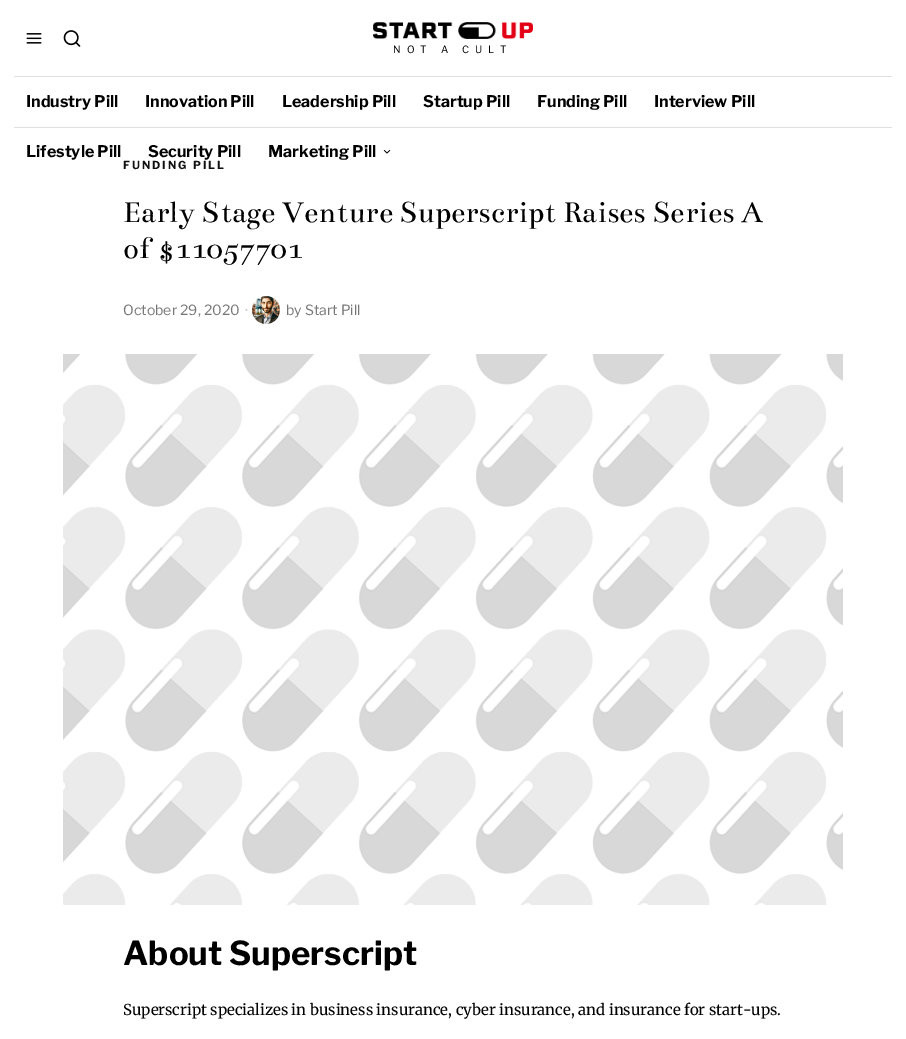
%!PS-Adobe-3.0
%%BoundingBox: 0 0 906 1039
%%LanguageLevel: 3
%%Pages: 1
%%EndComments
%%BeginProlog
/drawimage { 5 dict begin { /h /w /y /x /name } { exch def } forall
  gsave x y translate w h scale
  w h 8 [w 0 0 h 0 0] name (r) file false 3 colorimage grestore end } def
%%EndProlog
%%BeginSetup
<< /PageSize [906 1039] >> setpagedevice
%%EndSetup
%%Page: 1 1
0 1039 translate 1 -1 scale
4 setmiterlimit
1 setgray
0 0 906 1039 rectfill
(images/1.raw) 26 33 16 11 drawimage
(images/2.raw) 63 30 18 17 drawimage
(images/3.raw) 373 22 160 17 drawimage
0.878 setgray
14 76 878 1 rectfill
14 127 878 1 rectfill
(images/4.raw) 383 150 8 4 drawimage
(images/5.raw) 252 296 28 28 drawimage
(images/6.raw) 63 354 780 551 drawimage
/LibreFranklin-Regular [10 0 0 -10 0 0] selectfont
0 setgray
393 53 moveto 6 0 (NOT A CULT) ashow
/LibreFranklin-Bold [16 0 0 -16 0 0] selectfont
26 107 moveto (Industry Pill) show
145 107 moveto (Innovation Pill) show
282 107 moveto (Leadership Pill) show
423 107 moveto (Startup Pill) show
537 107 moveto (Funding Pill) show
654 107 moveto (Interview Pill) show
26 157 moveto (Lifestyle Pill) show
148 157 moveto (Security Pill) show
268 157 moveto (Marketing Pill) show
/LibreFranklin-Bold [11 0 0 -11 0 0] selectfont
0.067 setgray
123 169 moveto 2 0 (FUNDING PILL) ashow
/Bentham-Regular [32 0 0 -32 0 0] selectfont
0 setgray
123 222 moveto (Early Stage Venture Superscript Raises Series A) show
123 258 moveto (of $11057701) show
/LibreFranklin-Regular [14 0 0 -14 0 0] selectfont
0.467 setgray
123 315 moveto (October 29, 2020) show
0.733 setgray
245 315 moveto (·) show
0.467 setgray
286 315 moveto (by Start Pill) show
/LibreFranklin-Bold [33 0 0 -33 0 0] selectfont
0 setgray
123 965 moveto (About Superscript) show
/Merriweather-Light [15 0 0 -15 0 0] selectfont
123 1015 moveto (Superscript specializes in business insurance, cyber insurance, and insurance for start-ups.) show
showpage
%%EOF
